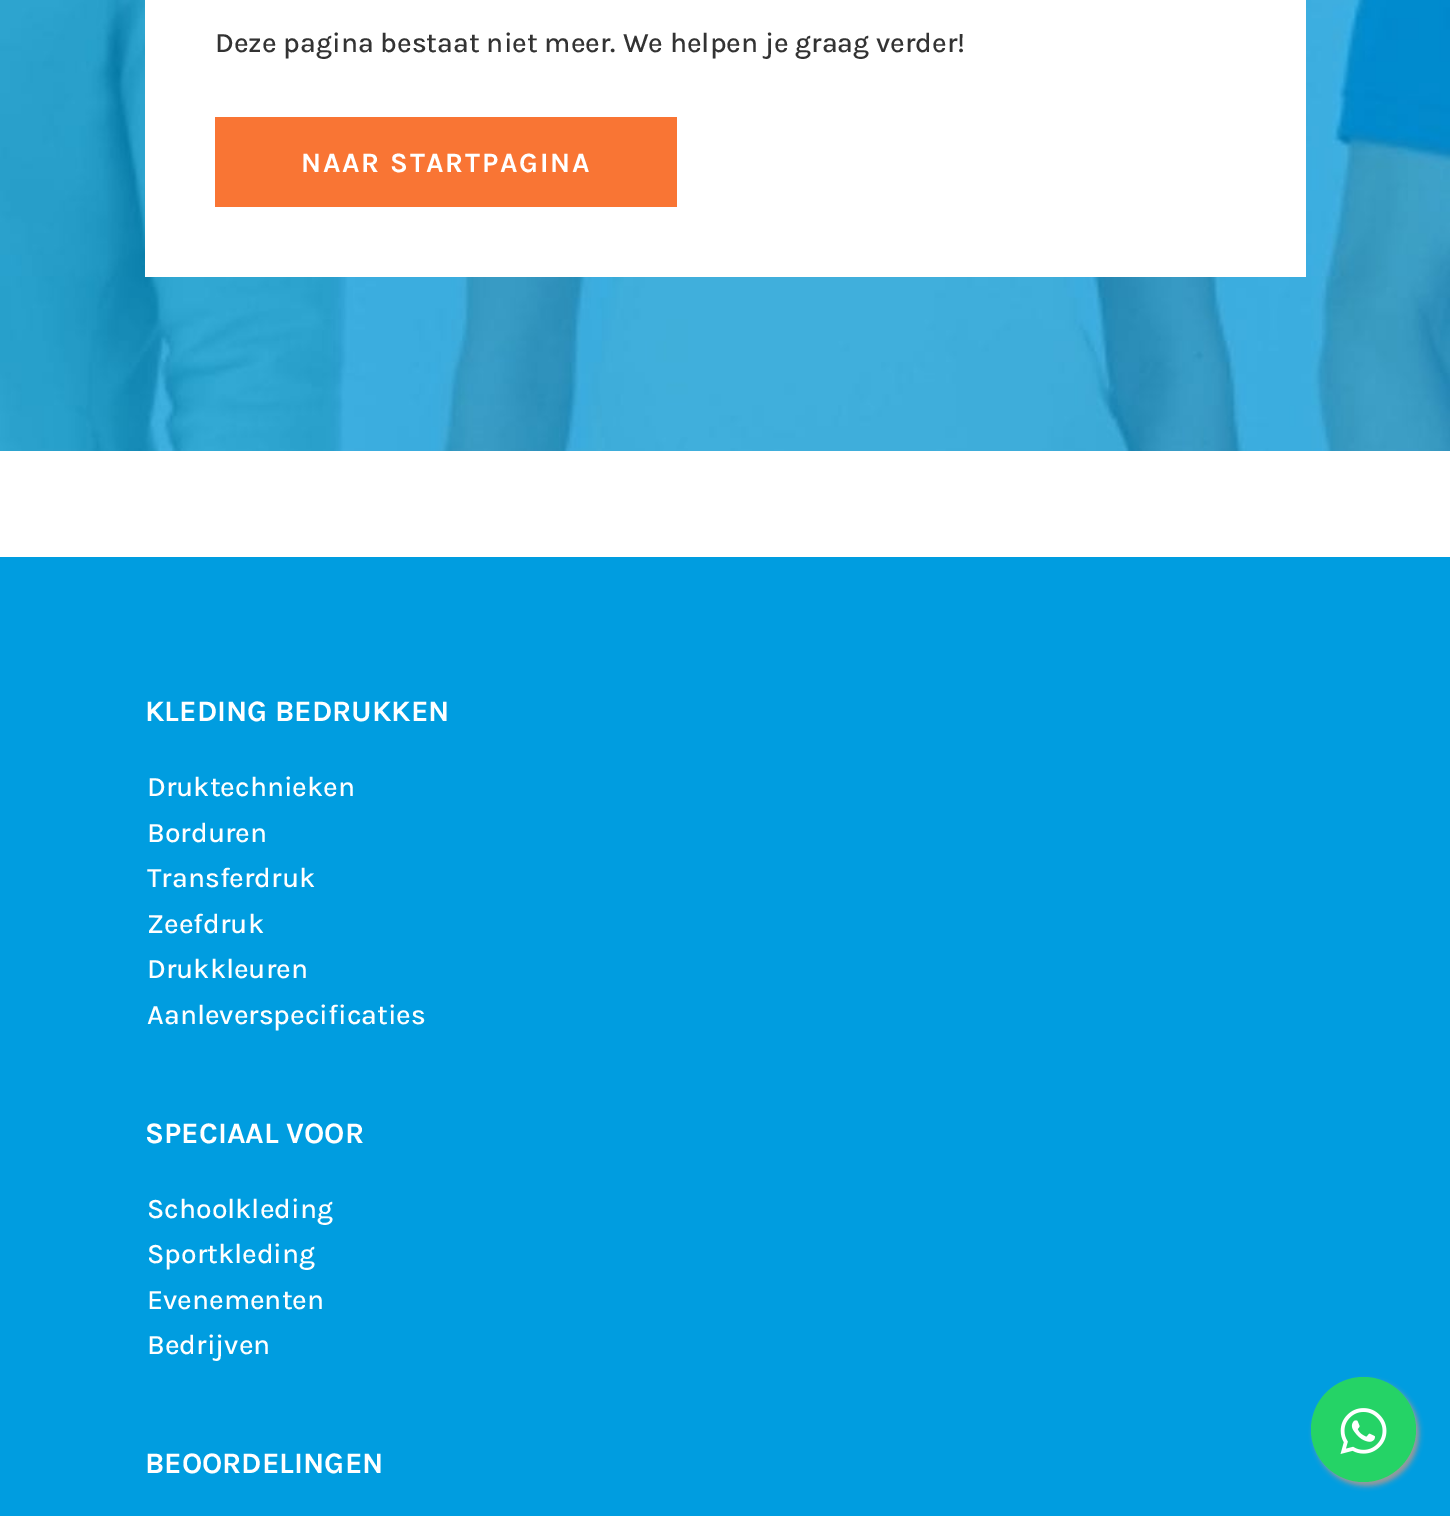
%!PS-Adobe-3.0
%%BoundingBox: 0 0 1450 1516
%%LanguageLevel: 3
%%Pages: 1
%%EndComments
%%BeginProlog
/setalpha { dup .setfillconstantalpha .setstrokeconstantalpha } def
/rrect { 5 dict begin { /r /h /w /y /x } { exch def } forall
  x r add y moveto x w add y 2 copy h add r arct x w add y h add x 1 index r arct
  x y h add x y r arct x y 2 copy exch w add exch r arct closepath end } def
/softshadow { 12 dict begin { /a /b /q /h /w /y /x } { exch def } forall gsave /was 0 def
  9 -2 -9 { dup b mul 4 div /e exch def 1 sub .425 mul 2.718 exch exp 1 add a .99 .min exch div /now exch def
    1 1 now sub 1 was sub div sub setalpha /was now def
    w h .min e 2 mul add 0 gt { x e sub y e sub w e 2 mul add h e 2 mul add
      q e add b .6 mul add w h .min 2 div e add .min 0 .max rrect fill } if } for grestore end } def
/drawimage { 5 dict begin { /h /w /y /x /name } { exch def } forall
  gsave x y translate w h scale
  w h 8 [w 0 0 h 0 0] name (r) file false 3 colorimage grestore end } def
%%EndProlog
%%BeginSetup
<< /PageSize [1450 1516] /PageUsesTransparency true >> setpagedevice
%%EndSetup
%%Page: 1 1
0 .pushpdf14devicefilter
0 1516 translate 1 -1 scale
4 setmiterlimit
1 setgray
0 0 1450 1516 rectfill
(images/1.raw) 0 0 1450 451 drawimage
145 0 1161 277 rectfill
0.976 0.459 0.204 setrgbcolor
215 117 462 90 rectfill
0 0.616 0.878 setrgbcolor
0 557 1450 959 rectfill
0.6 setgray
1314 1381 105 105 52.5 2.5 1 softshadow
0.145 0.827 0.4 setrgbcolor
newpath 1363.5 1429.5 52.5 0 360 arc closepath fill
(images/2.raw) 1340 1408 47 46 drawimage
/Karla-Medium [28 0 0 -28 0 0] selectfont
0.2 setgray
215 52 moveto (Deze pagina bestaat niet meer. We helpen je graag verder!) show
/Karla-Bold [28 0 0 -28 0 0] selectfont
1 setgray
301 172 moveto 1.75 0 (NAAR STARTPAGINA) ashow
/Karla-Bold [29.75 0 0 -29.75 0 0] selectfont
145 721 moveto (KLEDING BEDRUKKEN) show
/Karla-Medium [28 0 0 -28 0 0] selectfont
147 796 moveto (Druktechnieken) show
147 842 moveto (Borduren) show
147 887 moveto (Transferdruk) show
147 933 moveto (Zeefdruk) show
147 978 moveto (Drukkleuren) show
147 1024 moveto (Aanleverspecificaties) show
/Karla-Bold [29.75 0 0 -29.75 0 0] selectfont
145 1143 moveto (SPECIAAL VOOR) show
/Karla-Medium [28 0 0 -28 0 0] selectfont
147 1218 moveto (Schoolkleding) show
147 1263 moveto (Sportkleding) show
147 1309 moveto (Evenementen) show
147 1354 moveto (Bedrijven) show
/Karla-Bold [29.75 0 0 -29.75 0 0] selectfont
145 1473 moveto (BEOORDELINGEN) show
.poppdf14devicefilter showpage
%%EOF
